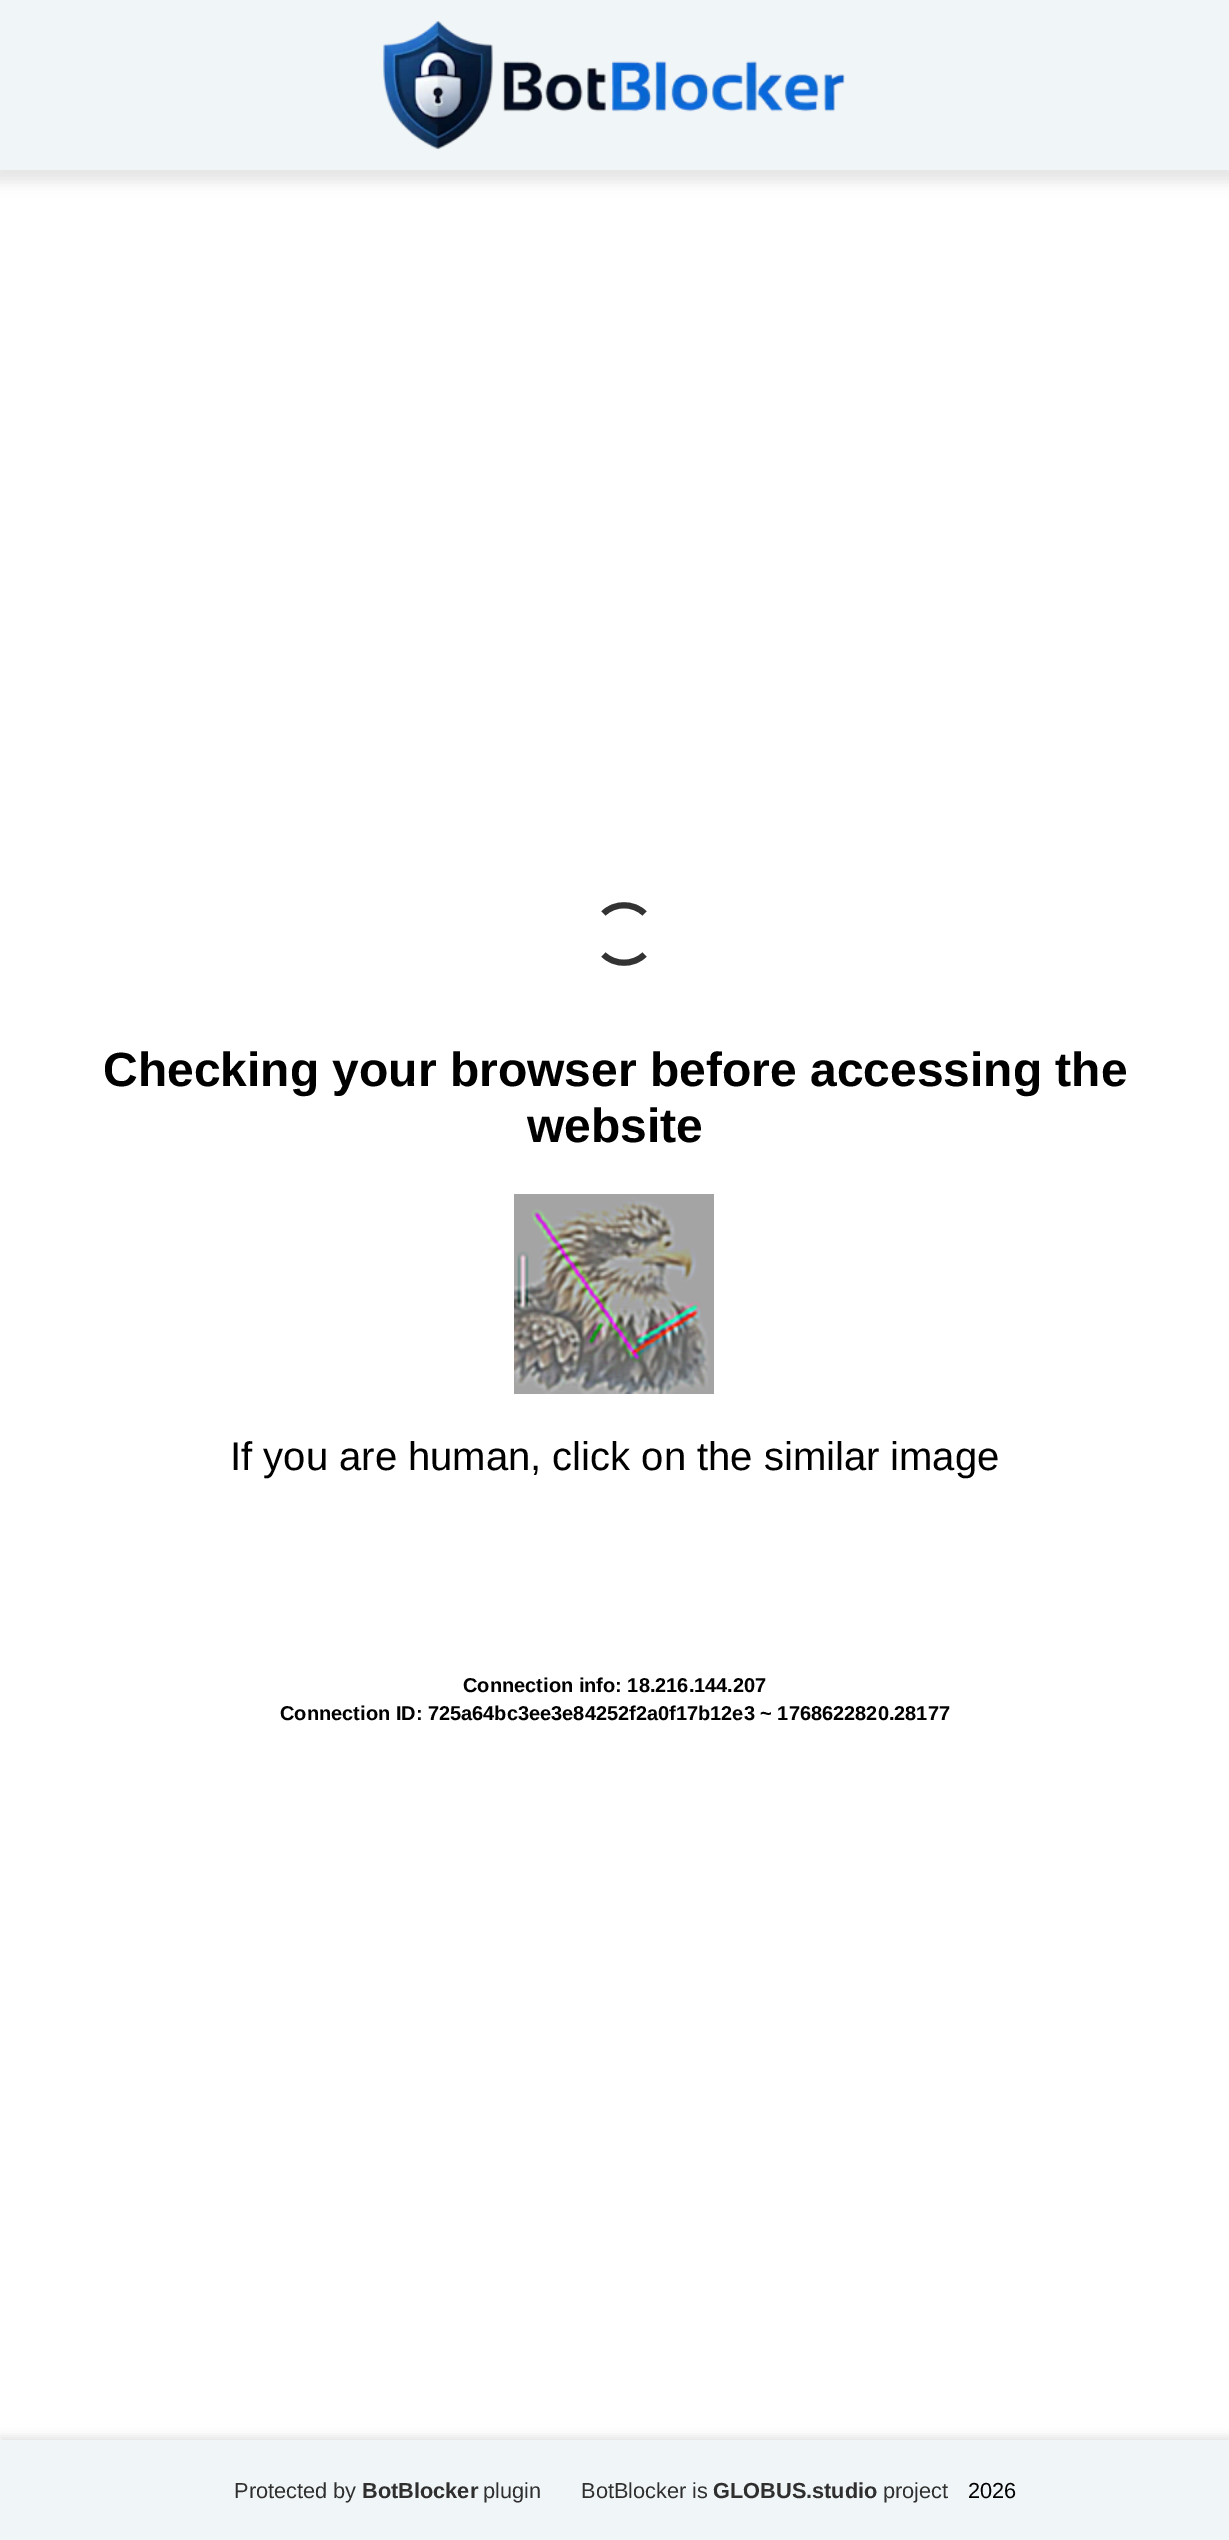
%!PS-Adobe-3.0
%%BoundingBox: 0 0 1229 2540
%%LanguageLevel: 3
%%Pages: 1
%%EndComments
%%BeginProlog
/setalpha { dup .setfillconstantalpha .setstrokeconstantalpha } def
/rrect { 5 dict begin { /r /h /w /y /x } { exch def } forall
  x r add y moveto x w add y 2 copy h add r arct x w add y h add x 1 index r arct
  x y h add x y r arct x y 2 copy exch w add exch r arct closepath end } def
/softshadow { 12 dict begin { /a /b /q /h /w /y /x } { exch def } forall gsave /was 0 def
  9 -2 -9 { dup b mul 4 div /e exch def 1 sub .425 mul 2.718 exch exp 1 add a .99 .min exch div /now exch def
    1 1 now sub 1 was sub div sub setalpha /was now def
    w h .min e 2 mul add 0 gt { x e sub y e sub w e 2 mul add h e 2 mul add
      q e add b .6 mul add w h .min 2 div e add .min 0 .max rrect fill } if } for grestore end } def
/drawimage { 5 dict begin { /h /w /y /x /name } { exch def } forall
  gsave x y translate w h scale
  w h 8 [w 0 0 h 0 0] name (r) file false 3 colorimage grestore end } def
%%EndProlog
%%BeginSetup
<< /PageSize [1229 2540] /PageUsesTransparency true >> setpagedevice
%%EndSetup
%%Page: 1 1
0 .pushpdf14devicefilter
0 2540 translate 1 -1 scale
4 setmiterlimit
1 setgray
0 0 1229 2540 rectfill
0 setgray
-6 0 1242 182 0 7 0.1 softshadow
0.941 0.961 0.969 setrgbcolor
0 0 1229 170 rectfill
(images/1.raw) 383 21 462 129 drawimage
0.2 setgray
6 setlinewidth
newpath 603.5 913.5 moveto 614.5 902.5 633.5 902.5 644.5 913.5 curveto stroke
newpath 644.5 954.5 moveto 633.5 965.5 614.5 965.5 603.5 954.5 curveto stroke
(images/2.raw) 514 1194 200 200 drawimage
0 setgray
0 2436 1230 100 0 4 0.1 softshadow
0.941 0.961 0.969 setrgbcolor
0 2440 1229 100 rectfill
/LiberationSans-Bold [48 0 0 -48 0 0] selectfont
0 setgray
103 1086 moveto (Checking your browser before accessing the) show
527 1142 moveto (website) show
/LiberationSans-Regular [40 0 0 -40 0 0] selectfont
230 1470 moveto (If you are human, click on the similar image) show
/LiberationSans-Bold [20 0 0 -20 0 0] selectfont
463 1692 moveto (Connection info: 18.216.144.207) show
280 1720 moveto (Connection ID: 725a64bc3ee3e84252f2a0f17b12e3 ~ 1768622820.28177) show
/LiberationSans-Regular [21.75 0 0 -21.75 0 0] selectfont
0.184 setgray
234 2498 moveto (Protected by) show
/LiberationSans-Bold [21.75 0 0 -21.75 0 0] selectfont
362 2498 moveto (BotBlocker) show
/LiberationSans-Regular [21.75 0 0 -21.75 0 0] selectfont
483 2498 moveto (plugin) show
581 2498 moveto (BotBlocker is) show
/LiberationSans-Bold [21.75 0 0 -21.75 0 0] selectfont
713 2498 moveto (GLOBUS.studio) show
/LiberationSans-Regular [21.75 0 0 -21.75 0 0] selectfont
883 2498 moveto (project) show
0 setgray
968 2498 moveto (2026) show
.poppdf14devicefilter showpage
%%EOF
